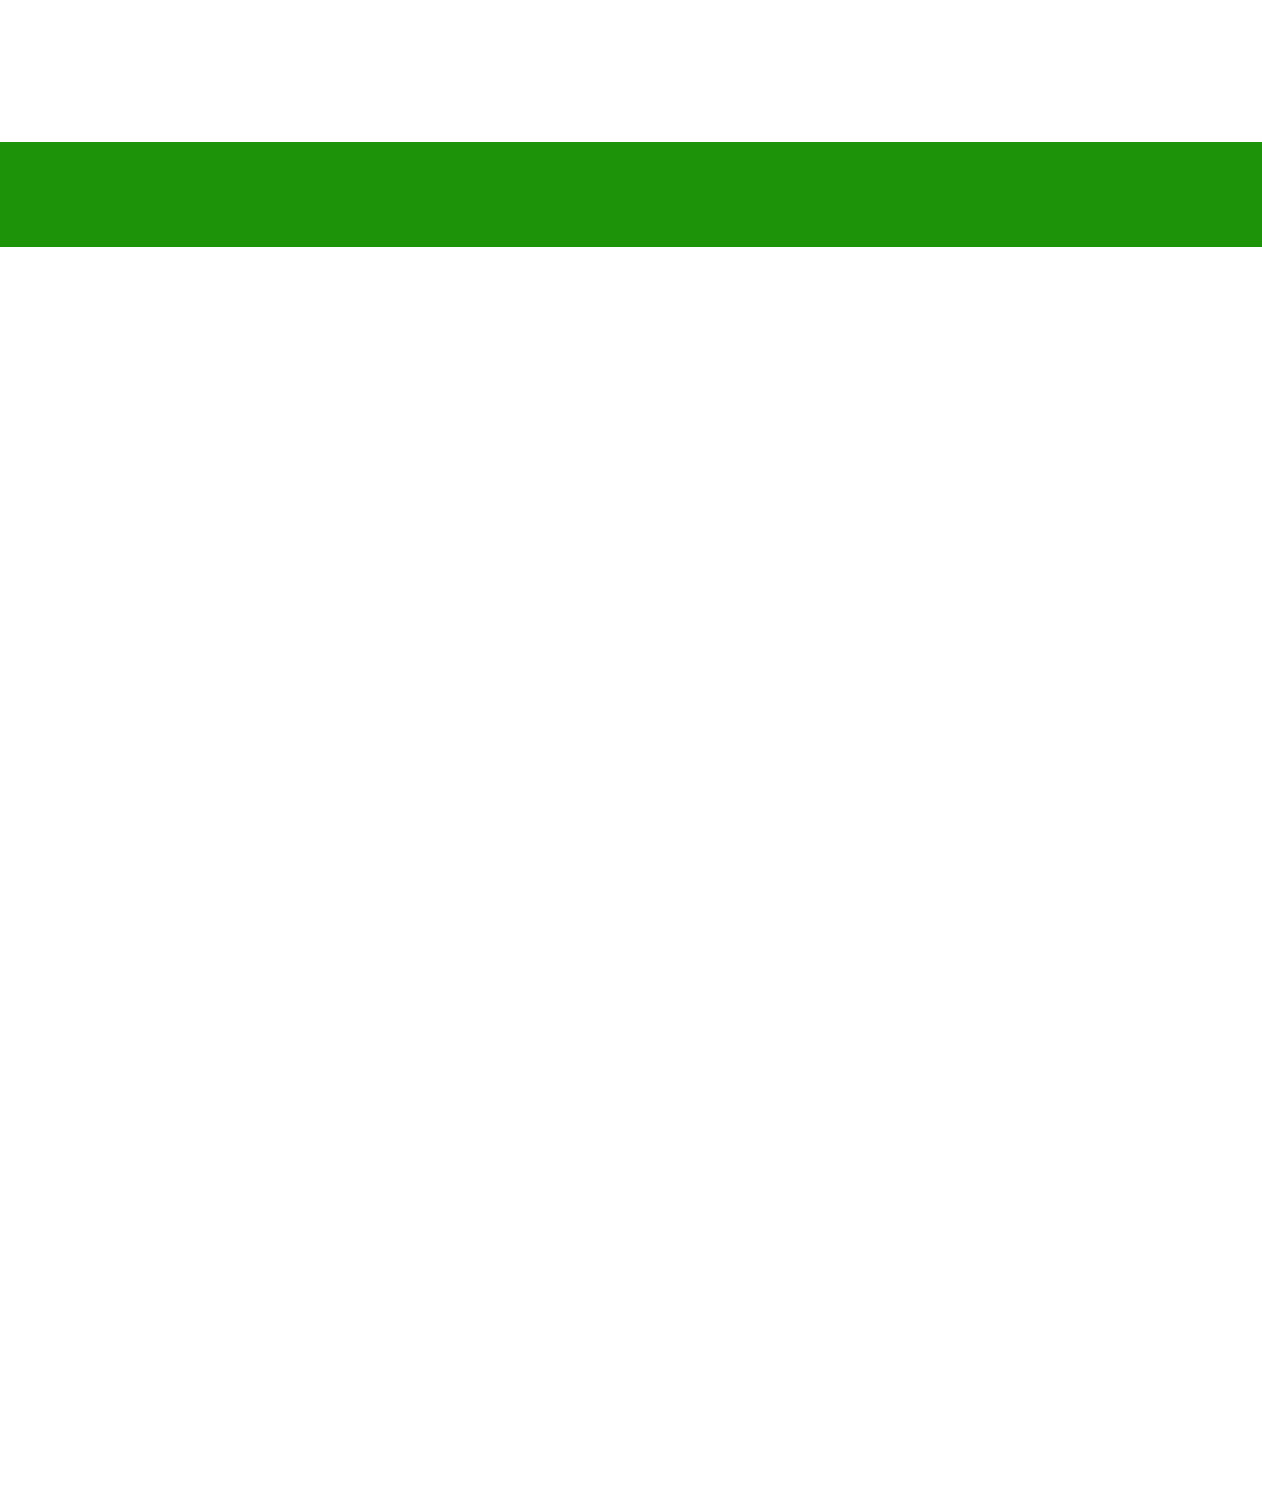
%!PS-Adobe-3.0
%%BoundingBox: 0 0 1262 1512
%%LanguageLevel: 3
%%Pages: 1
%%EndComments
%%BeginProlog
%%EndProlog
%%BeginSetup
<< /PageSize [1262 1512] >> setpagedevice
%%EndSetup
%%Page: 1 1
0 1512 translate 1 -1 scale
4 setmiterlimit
1 setgray
0 0 1262 1512 rectfill
0.114 0.576 0.039 setrgbcolor
0 142 1262 105 rectfill
showpage
%%EOF
